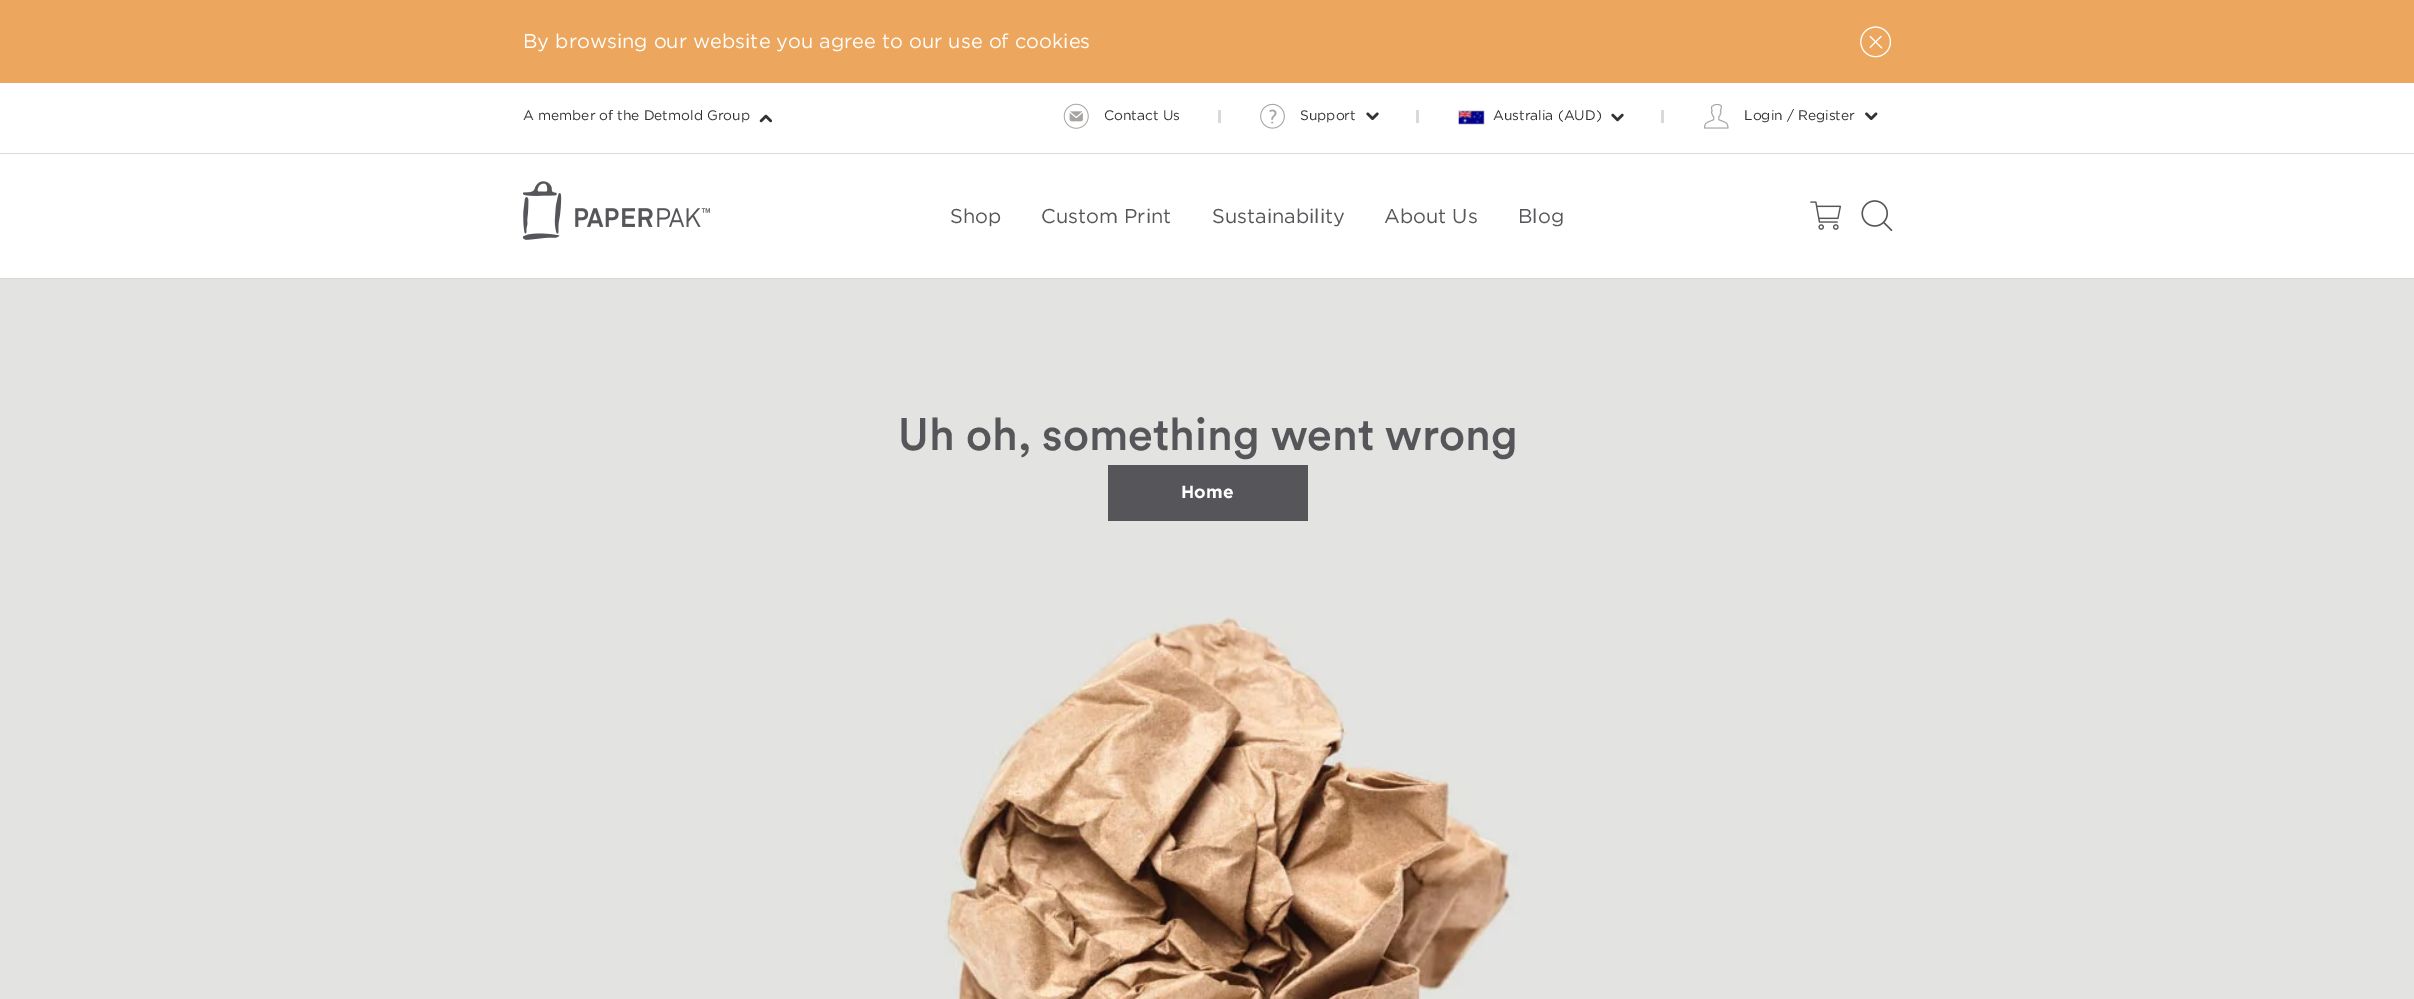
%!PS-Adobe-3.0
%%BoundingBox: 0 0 2414 999
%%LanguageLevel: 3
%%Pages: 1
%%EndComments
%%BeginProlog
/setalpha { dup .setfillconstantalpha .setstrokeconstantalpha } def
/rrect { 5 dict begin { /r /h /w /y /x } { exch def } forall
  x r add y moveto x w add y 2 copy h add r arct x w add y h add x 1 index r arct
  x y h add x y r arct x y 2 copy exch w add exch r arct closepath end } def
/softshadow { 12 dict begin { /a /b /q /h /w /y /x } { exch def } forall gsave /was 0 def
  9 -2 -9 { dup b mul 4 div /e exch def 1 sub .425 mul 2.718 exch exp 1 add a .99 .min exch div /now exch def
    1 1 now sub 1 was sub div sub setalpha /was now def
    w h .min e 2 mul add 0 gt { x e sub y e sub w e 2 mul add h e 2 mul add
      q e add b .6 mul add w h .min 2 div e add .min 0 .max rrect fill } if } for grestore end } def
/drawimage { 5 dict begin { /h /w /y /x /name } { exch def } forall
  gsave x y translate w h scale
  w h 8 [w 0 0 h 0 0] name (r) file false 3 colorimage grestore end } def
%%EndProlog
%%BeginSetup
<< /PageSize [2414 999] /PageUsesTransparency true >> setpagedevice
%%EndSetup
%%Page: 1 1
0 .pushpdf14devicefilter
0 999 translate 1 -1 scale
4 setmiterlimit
1 setgray
0 0 2414 999 rectfill
0.925 0.651 0.365 setrgbcolor
0 0 2414 83 rectfill
(images/1.raw) 1860 26 32 32 drawimage
0.859 0.851 0.839 setrgbcolor
0 153 2414 1 rectfill
(images/2.raw) 759 114 14 9 drawimage
(images/3.raw) 1063 103 26 26 drawimage
1218 110 3 13 rectfill
(images/4.raw) 1260 103 25 26 drawimage
(images/5.raw) 1366 112 13 8 drawimage
1416 110 3 13 rectfill
0.533 setgray
1459 111 25 13 0 0.5 1 softshadow
0.859 setgray
1459 111 25 13 rectfill
(images/6.raw) 1458 111 26 13 drawimage
(images/7.raw) 1611 113 13 9 drawimage
0.859 0.851 0.839 setrgbcolor
1661 110 3 13 rectfill
(images/8.raw) 1703 103 26 26 drawimage
(images/9.raw) 1865 112 13 8 drawimage
0 278 2414 1 rectfill
(images/10.raw) 523 181 187 59 drawimage
(images/11.raw) 1810 201 31 29 drawimage
(images/12.raw) 1861 200 32 31 drawimage
0.89 0.89 0.882 setrgbcolor
0 279 2414 720 rectfill
0.337 0.337 0.353 setrgbcolor
1108 465 200 56 rectfill
(images/13.raw) 944 616 575 383 drawimage
/Gotham-Regular [20 0 0 -20 0 0] selectfont
1 setgray
523 48 moveto (By browsing our website you agree to our use of cookies) show
/Gotham-Regular [13.75 0 0 -13.75 0 0] selectfont
0.2 0.192 0.2 setrgbcolor
523 120 moveto (A member of the Detmold Group) show
1104 120 moveto (Contact Us) show
1300 120 moveto (Support) show
1493 120 moveto (Australia \(AUD\)) show
1744 120 moveto (Login / Register) show
/Gotham-Regular [20 0 0 -20 0 0] selectfont
0.337 0.337 0.353 setrgbcolor
950 223 moveto (Shop) show
1041 223 moveto (Custom Print) show
1212 223 moveto (Sustainability) show
1384 223 moveto (About Us) show
1518 223 moveto (Blog) show
/Circular-Medium [45 0 0 -45 0 0] selectfont
898 450 moveto (Uh oh, something went wrong) show
/Gotham-Bold [17.5 0 0 -17.5 0 0] selectfont
1 setgray
1181 498 moveto (Home) show
.poppdf14devicefilter showpage
%%EOF
